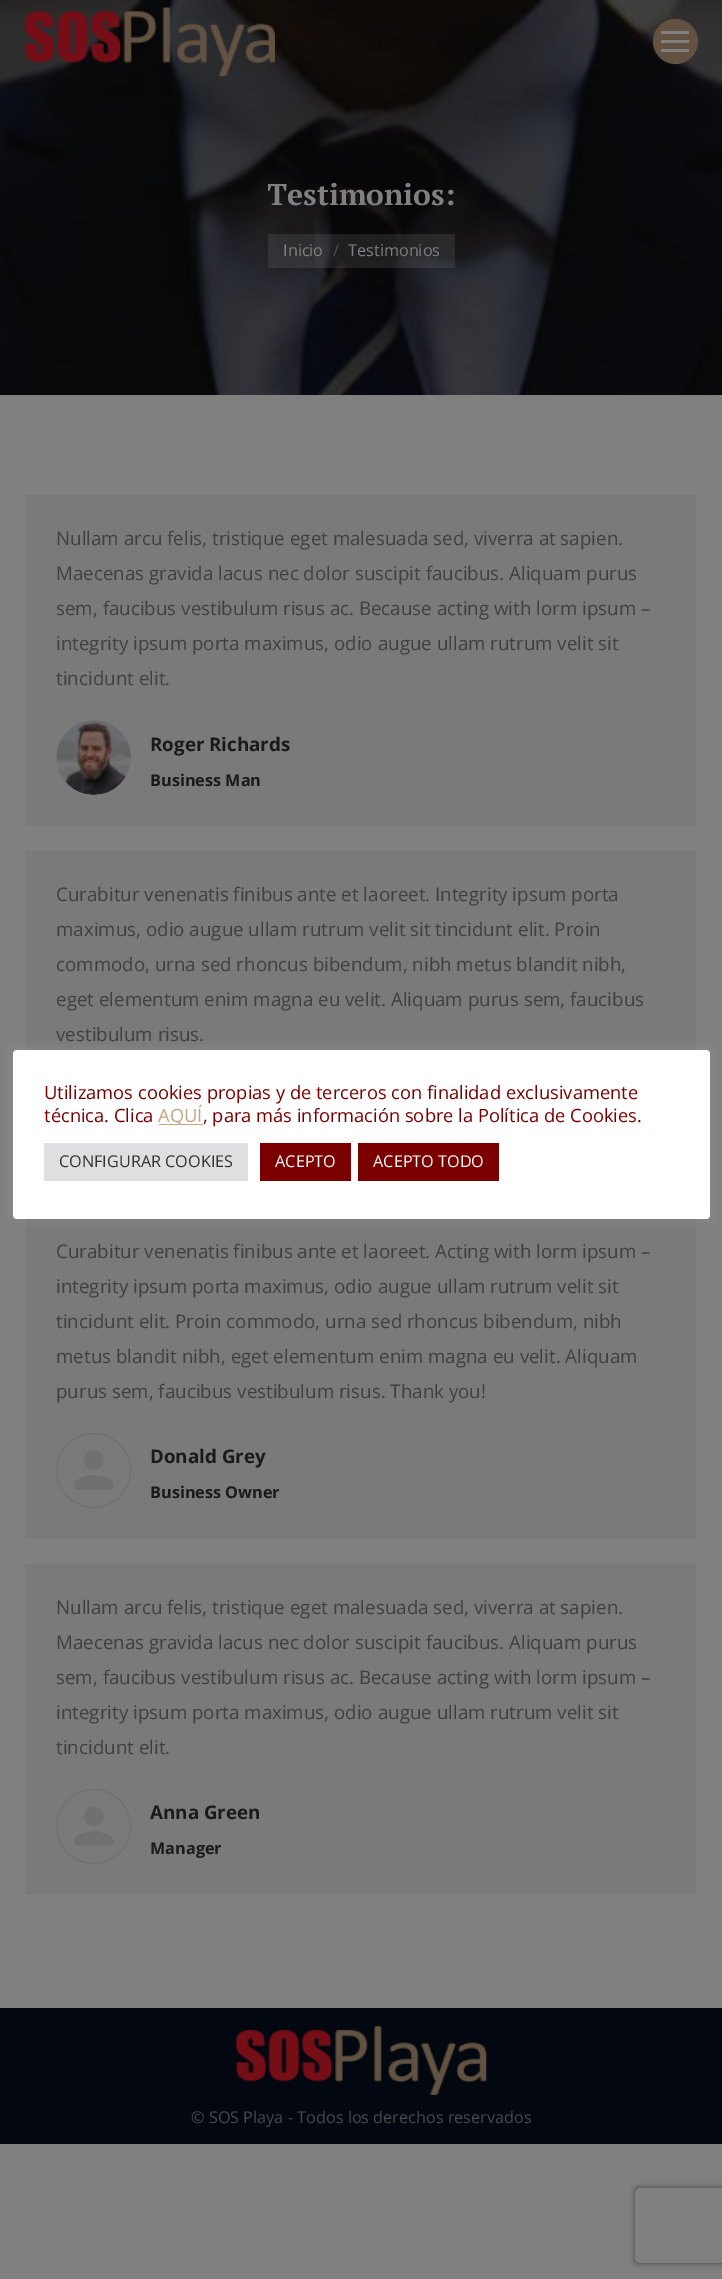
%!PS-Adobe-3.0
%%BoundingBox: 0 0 722 2279
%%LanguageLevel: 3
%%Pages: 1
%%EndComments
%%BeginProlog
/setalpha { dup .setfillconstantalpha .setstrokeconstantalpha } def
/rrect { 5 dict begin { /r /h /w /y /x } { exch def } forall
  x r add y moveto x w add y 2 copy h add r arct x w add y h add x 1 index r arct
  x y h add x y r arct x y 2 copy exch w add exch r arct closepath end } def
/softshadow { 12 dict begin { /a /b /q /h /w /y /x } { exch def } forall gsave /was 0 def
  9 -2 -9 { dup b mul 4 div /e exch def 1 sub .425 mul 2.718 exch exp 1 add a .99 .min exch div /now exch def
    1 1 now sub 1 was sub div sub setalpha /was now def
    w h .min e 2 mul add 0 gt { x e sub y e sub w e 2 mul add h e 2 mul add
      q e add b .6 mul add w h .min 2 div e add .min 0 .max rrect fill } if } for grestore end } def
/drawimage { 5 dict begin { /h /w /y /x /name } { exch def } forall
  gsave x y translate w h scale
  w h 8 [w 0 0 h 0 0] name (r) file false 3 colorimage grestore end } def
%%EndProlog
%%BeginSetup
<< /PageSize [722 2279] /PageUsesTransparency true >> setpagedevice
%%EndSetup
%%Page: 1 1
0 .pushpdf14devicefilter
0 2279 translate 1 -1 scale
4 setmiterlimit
0.502 setgray
0 0 722 2279 rectfill
(images/2.raw) 0 0 722 395 drawimage
(images/1.raw) 25 7 250 70 drawimage
0.388 0.322 0.259 setrgbcolor
newpath 675.5 41.5 22.5 0 360 arc closepath fill
0.502 setgray
661 31 28 3 rectfill
661 40 28 3 rectfill
661 49 28 3 rectfill
0.2 setalpha
268 234 187 34 rectfill
1 setalpha
0.478 setgray
25 495 671 331 rectfill
0.467 setgray
newpath 93.5 757.5 37.5 0 360 arc closepath fill
(images/3.raw) 56 720 75 75 drawimage
0.478 setgray
25 851 671 199 rectfill
25 1219 671 320 rectfill
0.439 setgray
newpath 93.5 1470.5 37 0 360 arc closepath stroke
(images/4.raw) 74 1450 40 40 drawimage
0.478 setgray
25 1564 671 331 rectfill
0.439 setgray
newpath 93.5 1826.5 37 0 360 arc closepath stroke
(images/5.raw) 74 1806 40 40 drawimage
0.012 0.031 0.063 setrgbcolor
0 2008 722 136 rectfill
(images/6.raw) 236 2026 251 69 drawimage
0.675 0.671 0.671 setrgbcolor
13 1049 697 169 4 6 0.3 softshadow
1 setgray
13 1050 697 169 4 rrect fill
0.773 0.643 0.514 setrgbcolor
159 1124 44 1 rectfill
0.871 0.875 0.878 setrgbcolor
44 1143 204 38 rectfill
0.478 0 0 setrgbcolor
260 1143 91 38 rectfill
358 1143 141 38 rectfill
gsave
newpath 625 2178 moveto 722 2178 lineto 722 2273 lineto 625 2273 lineto closepath 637.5 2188 moveto 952.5 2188 lineto 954 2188 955 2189 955 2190.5 curveto 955 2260.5 lineto 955 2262 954 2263 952.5 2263 curveto 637.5 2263 lineto 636 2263 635 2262 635 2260.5 curveto 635 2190.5 lineto 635 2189 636 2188 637.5 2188 curveto closepath eoclip newpath
0.251 setgray
635 2188 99 75 2.5 3 1 softshadow
grestore
gsave
268 173 187 42 rectclip
/PTSerif-Bold [30 0 0 -30 0 0] selectfont
0.502 setgray
267 205 moveto (Testimonios:) show
grestore
/OpenSans-Regular [16.25 0 0 -16.25 0 0] selectfont
0.502 setgray
283 256 moveto (Inicio) show
0.31 0.31 0.314 setrgbcolor
333 256 moveto (/) show
0.502 setgray
348 256 moveto (Testimonios) show
/OpenSans-Regular [18.75 0 0 -18.75 0 0] selectfont
0.251 setgray
56 545 moveto (Nullam arcu felis, tristique eget malesuada sed, viverra at sapien.) show
56 580 moveto (Maecenas gravida lacus nec dolor suscipit faucibus. Aliquam purus) show
56 615 moveto (sem, faucibus vestibulum risus ac. Because acting with lorm ipsum –) show
56 650 moveto (integrity ipsum porta maximus, odio augue ullam rutrum velit sit) show
56 685 moveto (tincidunt elit.) show
/OpenSans-Bold [18.75 0 0 -18.75 0 0] selectfont
0.102 setgray
150 751 moveto (Roger Richards) show
/OpenSans-Bold [16.25 0 0 -16.25 0 0] selectfont
150 786 moveto (Business Man) show
/OpenSans-Regular [18.75 0 0 -18.75 0 0] selectfont
0.251 setgray
56 901 moveto (Curabitur venenatis finibus ante et laoreet. Integrity ipsum porta) show
56 936 moveto (maximus, odio augue ullam rutrum velit sit tincidunt elit. Proin) show
56 971 moveto (commodo, urna sed rhoncus bibendum, nibh metus blandit nibh,) show
56 1006 moveto (eget elementum enim magna eu velit. Aliquam purus sem, faucibus) show
56 1041 moveto (vestibulum risus.) show
56 1258 moveto (Curabitur venenatis finibus ante et laoreet. Acting with lorm ipsum –) show
56 1293 moveto (integrity ipsum porta maximus, odio augue ullam rutrum velit sit) show
56 1328 moveto (tincidunt elit. Proin commodo, urna sed rhoncus bibendum, nibh) show
56 1363 moveto (metus blandit nibh, eget elementum enim magna eu velit. Aliquam) show
56 1398 moveto (purus sem, faucibus vestibulum risus. Thank you!) show
/OpenSans-Bold [18.75 0 0 -18.75 0 0] selectfont
0.102 setgray
150 1463 moveto (Donald Grey) show
/OpenSans-Bold [16.25 0 0 -16.25 0 0] selectfont
150 1498 moveto (Business Owner) show
/OpenSans-Regular [18.75 0 0 -18.75 0 0] selectfont
0.251 setgray
56 1614 moveto (Nullam arcu felis, tristique eget malesuada sed, viverra at sapien.) show
56 1649 moveto (Maecenas gravida lacus nec dolor suscipit faucibus. Aliquam purus) show
56 1684 moveto (sem, faucibus vestibulum risus ac. Because acting with lorm ipsum –) show
56 1719 moveto (integrity ipsum porta maximus, odio augue ullam rutrum velit sit) show
56 1754 moveto (tincidunt elit.) show
/OpenSans-Bold [18.75 0 0 -18.75 0 0] selectfont
0.102 setgray
150 1819 moveto (Anna Green) show
/OpenSans-Bold [16.25 0 0 -16.25 0 0] selectfont
150 1854 moveto (Manager) show
/OpenSans-Regular [16.25 0 0 -16.25 0 0] selectfont
0.278 0.282 0.29 setrgbcolor
191 2123 moveto (© SOS Playa - Todos los derechos reservados) show
/OpenSans-Regular [18.3 0 0 -18.3 0 0] selectfont
0.478 0 0 setrgbcolor
44 1099 moveto (Utilizamos cookies propias y de terceros con finalidad exclusivamente) show
44 1122 moveto (técnica. Clica) show
0.773 0.643 0.514 setrgbcolor
158 1122 moveto (AQUÍ) show
0.478 0 0 setrgbcolor
203 1122 moveto (, para más información sobre la Política de Cookies.) show
/OpenSans-Regular [16.25 0 0 -16.25 0 0] selectfont
0.2 setgray
59 1167 moveto (CONFIGURAR COOKIES) show
1 setgray
275 1167 moveto (ACEPTO) show
373 1167 moveto (ACEPTO TODO) show
.poppdf14devicefilter showpage
%%EOF
